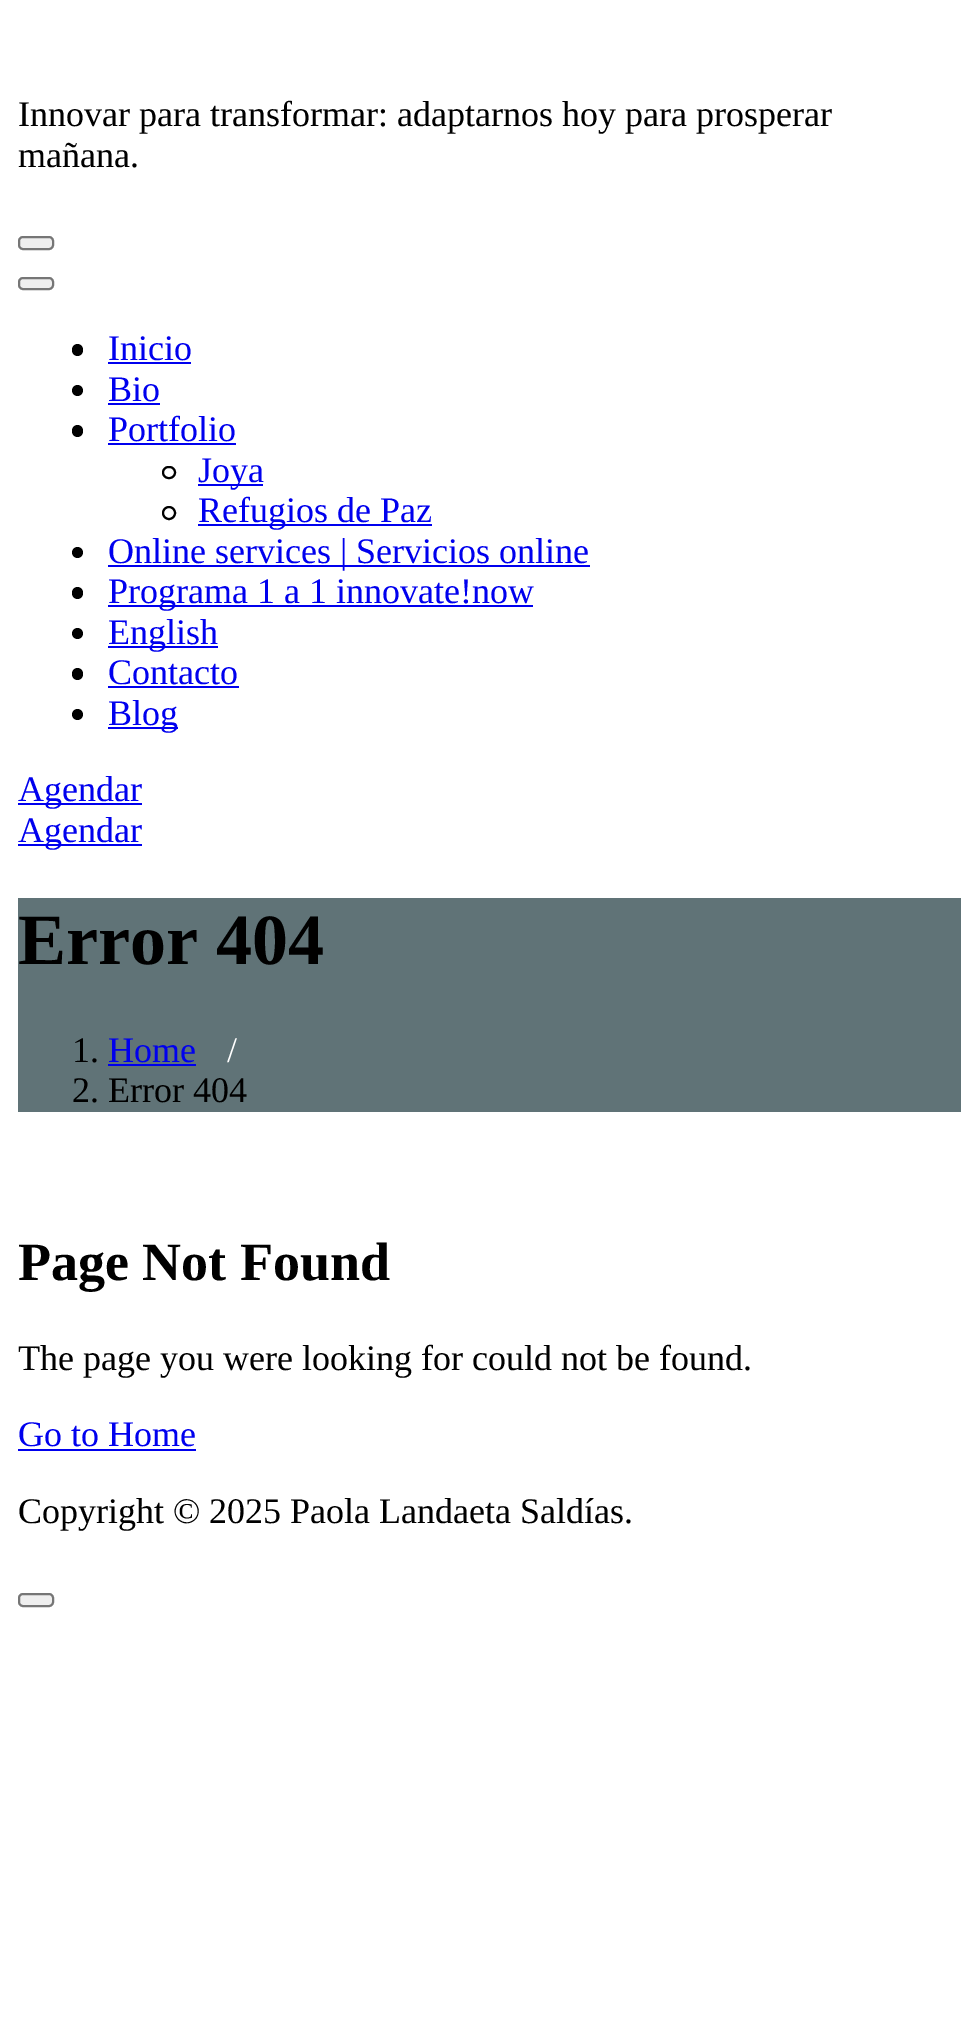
%!PS-Adobe-3.0
%%BoundingBox: 0 0 978 2021
%%LanguageLevel: 3
%%Pages: 1
%%EndComments
%%BeginProlog
/rrect { 5 dict begin { /r /h /w /y /x } { exch def } forall
  x r add y moveto x w add y 2 copy h add r arct x w add y h add x 1 index r arct
  x y h add x y r arct x y 2 copy exch w add exch r arct closepath end } def
%%EndProlog
%%BeginSetup
<< /PageSize [978 2021] >> setpagedevice
%%EndSetup
%%Page: 1 1
0 2021 translate 1 -1 scale
4 setmiterlimit
1 setgray
0 0 978 2021 rectfill
0.937 setgray
19 237 34 12 4 rrect gsave fill grestore
0.463 setgray
2 setlinewidth
stroke
0.937 setgray
19 278 34 11 4 rrect gsave fill grestore
0.463 setgray
stroke
0 setgray
72 344 11 12 5.5 rrect fill
0 0 0.933 setrgbcolor
108 362 83 2 rectfill
0 setgray
newpath 77.5 390.5 5.5 0 360 arc closepath fill
0 0 0.933 setrgbcolor
108 403 52 2 rectfill
0 setgray
72 425 11 12 5.5 rrect fill
0 0 0.933 setrgbcolor
108 443 128 2 rectfill
0 setgray
163 467 12 11 5.5 rrect stroke
0 0 0.933 setrgbcolor
198 484 65 2 rectfill
0 setgray
newpath 169 513 6 0 360 arc closepath stroke
0 0 0.933 setrgbcolor
198 524 234 2 rectfill
0 setgray
newpath 77.5 552.5 5.5 0 360 arc closepath fill
0 0 0.933 setrgbcolor
108 565 482 2 rectfill
0 setgray
72 587 11 12 5.5 rrect fill
0 0 0.933 setrgbcolor
108 605 425 2 rectfill
0 setgray
newpath 77.5 633.5 5.5 0 360 arc closepath fill
0 0 0.933 setrgbcolor
108 646 110 2 rectfill
0 setgray
72 668 11 12 5.5 rrect fill
0 0 0.933 setrgbcolor
108 686 131 2 rectfill
0 setgray
newpath 77.5 714.5 5.5 0 360 arc closepath fill
0 0 0.933 setrgbcolor
108 727 70 2 rectfill
18 803 124 2 rectfill
18 844 124 2 rectfill
0.376 0.451 0.467 setrgbcolor
18 898 943 214 rectfill
0 0 0.933 setrgbcolor
108 1064 88 2 rectfill
18 1449 178 2 rectfill
0.937 setgray
19 1594 34 12 4 rrect gsave fill grestore
0.463 setgray
stroke
/LiberationSerif-Regular [36 0 0 -36 0 0] selectfont
0 setgray
18 126 moveto (Innovar para transformar: adaptarnos hoy para prosperar) show
18 167 moveto (mañana.) show
0 0 0.933 setrgbcolor
108 360 moveto (Inicio) show
108 401 moveto (Bio) show
108 441 moveto (Portfolio) show
198 482 moveto (Joya) show
198 522 moveto (Refugios de Paz) show
108 563 moveto (Online services | Servicios online) show
108 603 moveto (Programa 1 a 1 innovate!now) show
108 644 moveto (English) show
108 684 moveto (Contacto) show
108 725 moveto (Blog) show
18 801 moveto (Agendar) show
18 842 moveto (Agendar) show
/LiberationSerif-Bold [72 0 0 -72 0 0] selectfont
0 setgray
18 964 moveto (Error 404) show
/LiberationSerif-Regular [36 0 0 -36 0 0] selectfont
72 1062 moveto (1.) show
0 0 0.933 setrgbcolor
108 1062 moveto (Home) show
1 setgray
227 1062 moveto (/) show
0 setgray
72 1102 moveto (2. Error 404) show
/LiberationSerif-Bold [54 0 0 -54 0 0] selectfont
18 1280 moveto (Page Not Found) show
/LiberationSerif-Regular [36 0 0 -36 0 0] selectfont
18 1370 moveto (The page you were looking for could not be found.) show
0 0 0.933 setrgbcolor
18 1446 moveto (Go to Home) show
0 setgray
18 1523 moveto (Copyright © 2025 Paola Landaeta Saldías.) show
showpage
%%EOF
